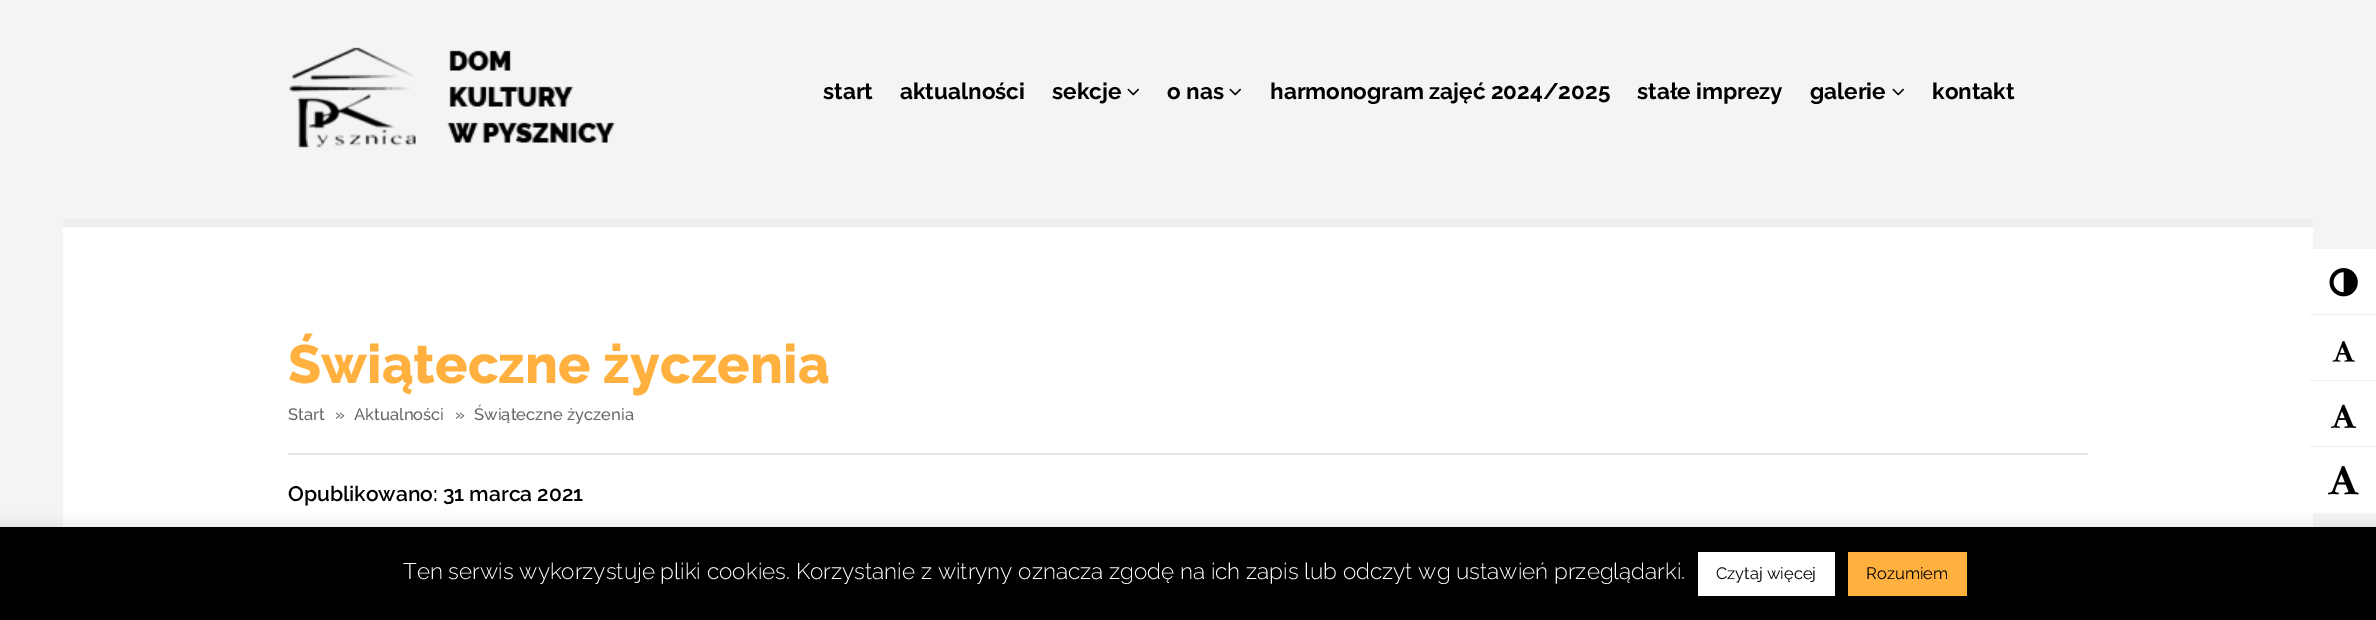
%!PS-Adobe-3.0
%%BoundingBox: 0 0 2376 620
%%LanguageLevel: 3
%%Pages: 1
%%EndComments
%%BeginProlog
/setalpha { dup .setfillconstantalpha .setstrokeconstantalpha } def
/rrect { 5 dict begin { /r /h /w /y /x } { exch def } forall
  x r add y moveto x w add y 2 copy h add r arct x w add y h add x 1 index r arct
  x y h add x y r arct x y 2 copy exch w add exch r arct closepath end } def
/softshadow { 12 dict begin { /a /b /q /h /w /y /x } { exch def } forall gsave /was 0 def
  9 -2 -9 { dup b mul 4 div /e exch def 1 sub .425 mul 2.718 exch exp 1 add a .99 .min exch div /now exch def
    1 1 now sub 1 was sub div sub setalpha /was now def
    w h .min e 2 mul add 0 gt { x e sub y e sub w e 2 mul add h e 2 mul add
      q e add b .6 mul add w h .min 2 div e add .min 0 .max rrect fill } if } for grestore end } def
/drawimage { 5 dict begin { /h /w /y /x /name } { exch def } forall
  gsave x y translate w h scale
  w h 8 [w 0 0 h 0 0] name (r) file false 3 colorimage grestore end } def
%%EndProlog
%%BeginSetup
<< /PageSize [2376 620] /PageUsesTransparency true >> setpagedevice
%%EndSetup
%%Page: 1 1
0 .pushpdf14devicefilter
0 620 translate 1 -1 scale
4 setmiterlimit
0.957 setgray
0 0 2376 620 rectfill
(images/1.raw) 289 47 327 101 drawimage
(images/2.raw) 1127 88 13 8 drawimage
(images/2.raw) 1229 88 13 8 drawimage
(images/2.raw) 1892 88 13 8 drawimage
1 setgray
63 227 2250 300 rectfill
0.933 setgray
63 219 2250 8 rectfill
0.902 setgray
288 453 1800 2 rectfill
1 setgray
2313 249 63 65 rectfill
0.933 setgray
2310 314 66 1 rectfill
(images/3.raw) 2329 268 29 29 drawimage
1 setgray
2313 315 63 65 rectfill
0.933 setgray
2310 380 66 1 rectfill
(images/4.raw) 2332 341 23 21 drawimage
1 setgray
2313 381 63 65 rectfill
0.933 setgray
2310 446 66 1 rectfill
(images/5.raw) 2331 404 26 24 drawimage
1 setgray
2313 447 63 66 rectfill
(images/6.raw) 2328 466 31 29 drawimage
0.675 0.671 0.671 setrgbcolor
0 525 2376 95 0 7.5 0.3 softshadow
0 setgray
0 527 2376 93 rectfill
1 setgray
1698 552 137 44 rectfill
1 0.69 0.243 setrgbcolor
1848 552 119 44 rectfill
/Raleway-Bold [22.5 0 0 -22.5 0 0] selectfont
0 setgray
823 99 moveto (start) show
900 99 moveto (aktualności) show
1052 99 moveto (sekcje) show
1167 99 moveto (o nas) show
1270 99 moveto (harmonogram zajęć 2024/2025) show
1637 99 moveto (stałe imprezy) show
1810 99 moveto (galerie) show
1932 99 moveto (kontakt) show
/Raleway-ExtraBold [54 0 0 -54 0 0] selectfont
1 0.69 0.243 setrgbcolor
288 383 moveto (Świąteczne życzenia) show
/Raleway-Medium [16.5 0 0 -16.5 0 0] selectfont
0.4 setgray
288 420 moveto (Start) show
335 420 moveto (») show
354 420 moveto (Aktualności) show
455 420 moveto (») show
474 420 moveto (Świąteczne życzenia) show
/Raleway-SemiBold [21 0 0 -21 0 0] selectfont
0 setgray
288 501 moveto (Opublikowano: 31 marca 2021) show
/Raleway-Light [22.5 0 0 -22.5 0 0] selectfont
1 setgray
403 579 moveto (Ten serwis wykorzystuje pliki cookies. Korzystanie z witryny oznacza zgodę na ich zapis lub odczyt wg ustawień przeglądarki.) show
/Raleway-Regular [16.5 0 0 -16.5 0 0] selectfont
0 setgray
1716 579 moveto (Czytaj więcej) show
1866 579 moveto (Rozumiem) show
.poppdf14devicefilter showpage
%%EOF
